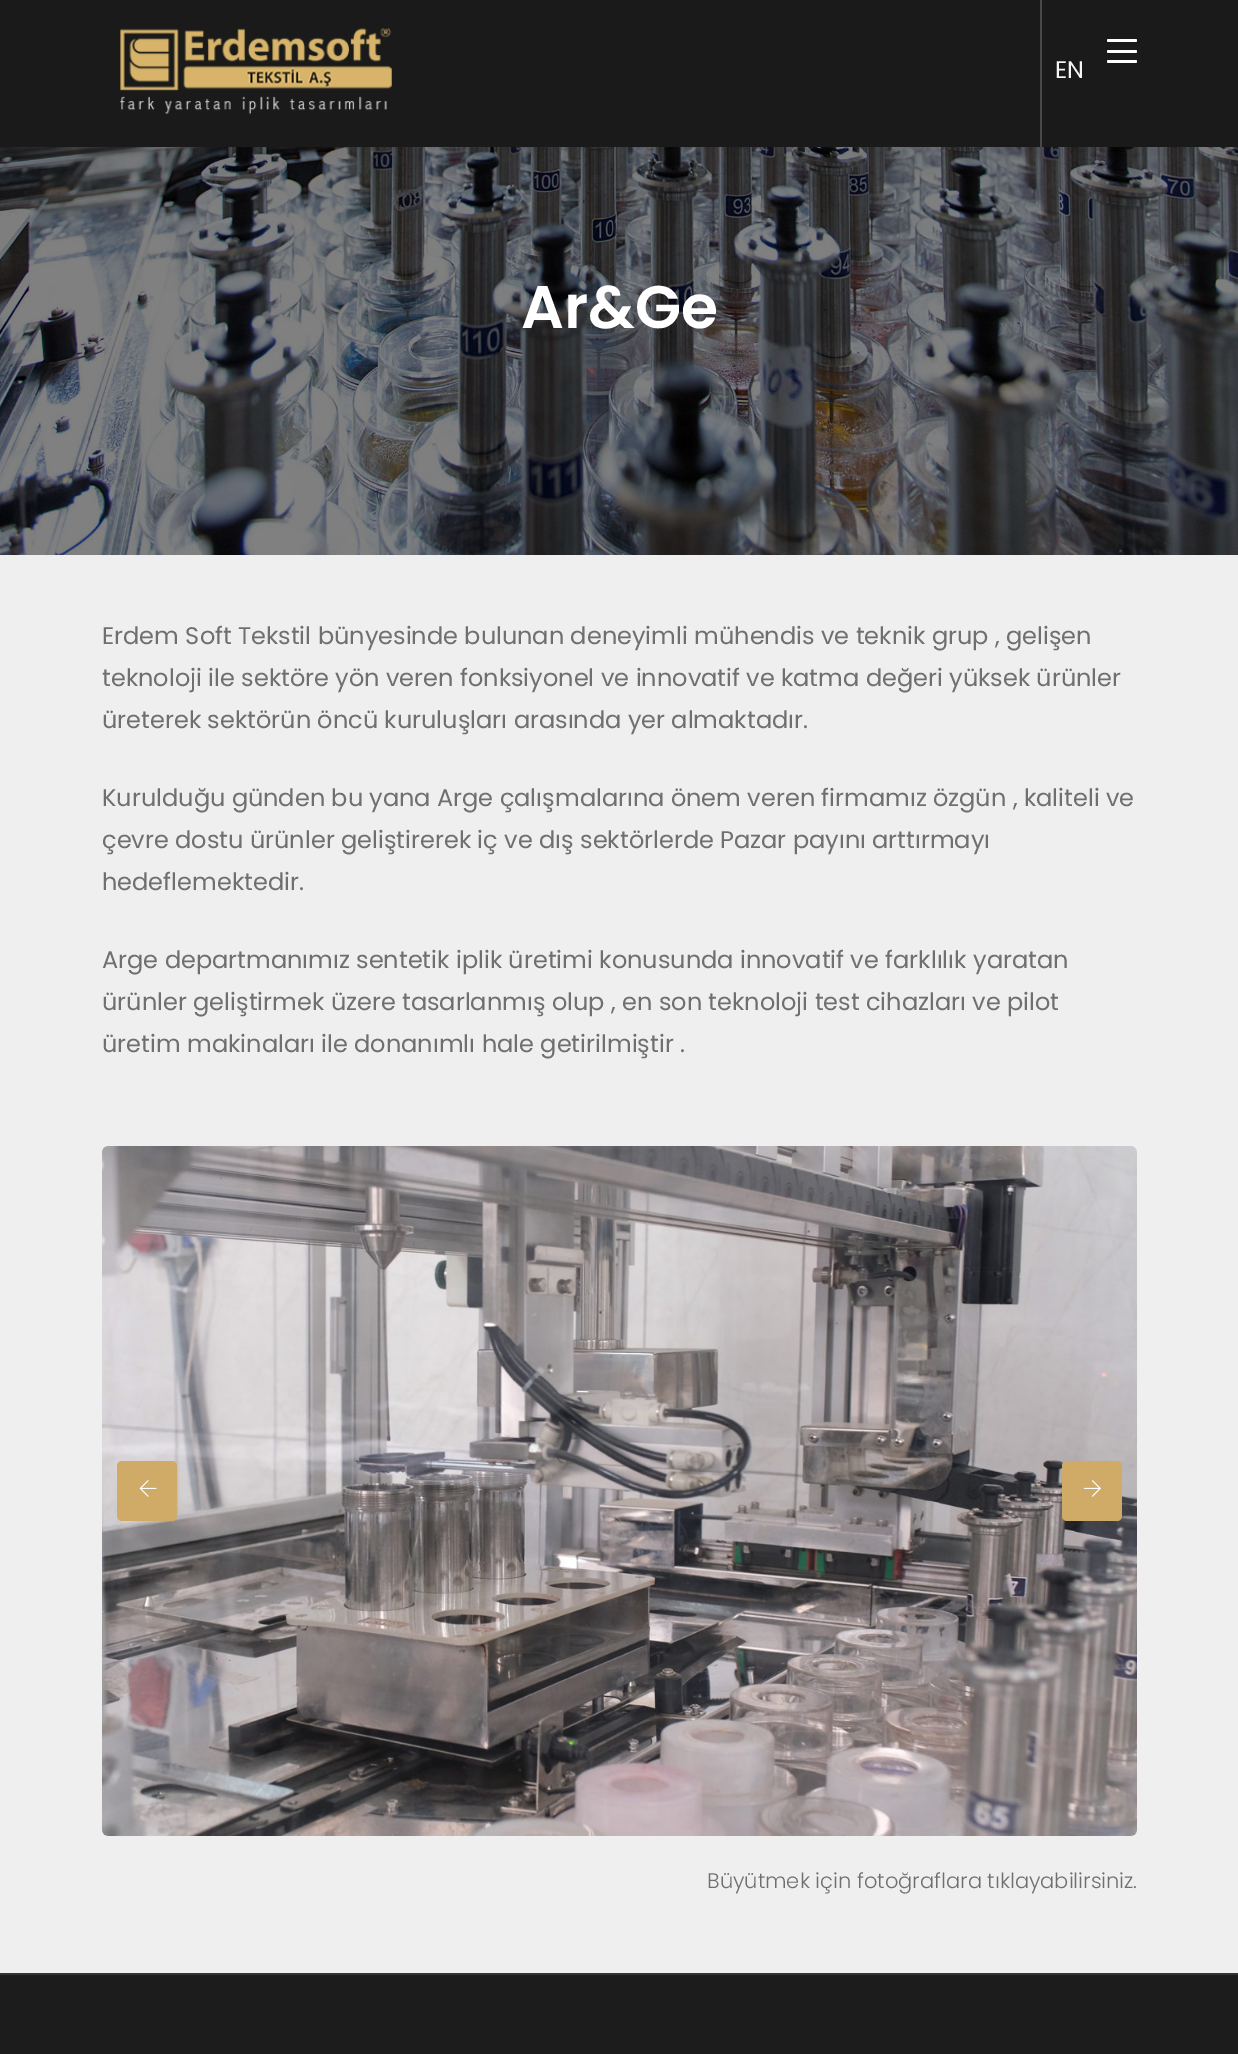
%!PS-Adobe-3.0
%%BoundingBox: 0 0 1238 2054
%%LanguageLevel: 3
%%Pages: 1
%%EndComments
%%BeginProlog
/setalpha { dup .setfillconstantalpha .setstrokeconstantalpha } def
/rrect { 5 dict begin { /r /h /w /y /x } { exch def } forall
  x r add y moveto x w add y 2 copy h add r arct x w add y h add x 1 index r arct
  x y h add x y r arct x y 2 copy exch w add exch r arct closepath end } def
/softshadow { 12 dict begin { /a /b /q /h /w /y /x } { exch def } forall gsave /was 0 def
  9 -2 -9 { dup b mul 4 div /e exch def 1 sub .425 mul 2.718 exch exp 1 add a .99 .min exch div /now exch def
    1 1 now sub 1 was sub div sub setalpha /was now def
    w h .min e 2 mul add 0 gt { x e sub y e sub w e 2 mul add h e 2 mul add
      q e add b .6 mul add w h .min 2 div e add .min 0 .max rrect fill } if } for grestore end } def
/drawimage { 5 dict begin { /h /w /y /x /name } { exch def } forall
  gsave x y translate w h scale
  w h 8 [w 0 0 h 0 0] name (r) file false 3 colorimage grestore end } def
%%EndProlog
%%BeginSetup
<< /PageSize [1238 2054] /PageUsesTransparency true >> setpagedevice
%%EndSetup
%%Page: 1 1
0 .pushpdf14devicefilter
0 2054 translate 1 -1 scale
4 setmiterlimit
0.937 setgray
0 0 1238 2054 rectfill
(images/2.raw) 0 147 1238 408 drawimage
0 setgray
0 0 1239 147 0 37.5 0.1 softshadow
0.102 setgray
0 0 1238 147 rectfill
(images/1.raw) 120 28 272 87 drawimage
1 setgray
1107 39 30 3 1.5 rrect fill
1107 50 30 3 1.5 rrect fill
1107 60 30 3 1.5 rrect fill
0.282 setgray
1040 0 2 147 rectfill
(images/3.raw) 102 1146 1035 690 drawimage
0.816 0.671 0.404 setrgbcolor
117 1461 60 60 5 rrect fill
(images/4.raw) 139 1480 18 17 drawimage
1062 1461 60 60 5 rrect fill
(images/5.raw) 1084 1480 17 17 drawimage
0.11 setgray
0 1975 1238 79 rectfill
0.2 setgray
0 1973 1238 2 rectfill
/Poppins-Regular [24 0 0 -24 0 0] selectfont
0.961 setgray
1055 78 moveto (EN) show
/Poppins-SemiBold [60 0 0 -60 0 0] selectfont
1 setgray
521 328 moveto (Ar&Ge) show
/Poppins-Regular [24 0 0 -24 0 0] selectfont
0.435 setgray
102 644 moveto (Erdem Soft Tekstil bünyesinde bulunan deneyimli mühendis ve teknik grup , gelişen) show
102 686 moveto (teknoloji ile sektöre yön veren fonksiyonel ve innovatif ve katma değeri yüksek ürünler) show
102 728 moveto (üreterek sektörün öncü kuruluşları arasında yer almaktadır.) show
102 806 moveto (Kurulduğu günden bu yana Arge çalışmalarına önem veren firmamız özgün , kaliteli ve) show
102 848 moveto (çevre dostu ürünler geliştirerek iç ve dış sektörlerde Pazar payını arttırmayı) show
102 890 moveto (hedeflemektedir.) show
102 968 moveto (Arge departmanımız sentetik iplik üretimi konusunda innovatif ve farklılık yaratan) show
102 1010 moveto (ürünler geliştirmek üzere tasarlanmış olup , en son teknoloji test cihazları ve pilot) show
102 1052 moveto (üretim makinaları ile donanımlı hale getirilmiştir .) show
/Poppins-Light [21 0 0 -21 0 0] selectfont
707 1888 moveto (Büyütmek için fotoğraflara tıklayabilirsiniz.) show
.poppdf14devicefilter showpage
%%EOF
